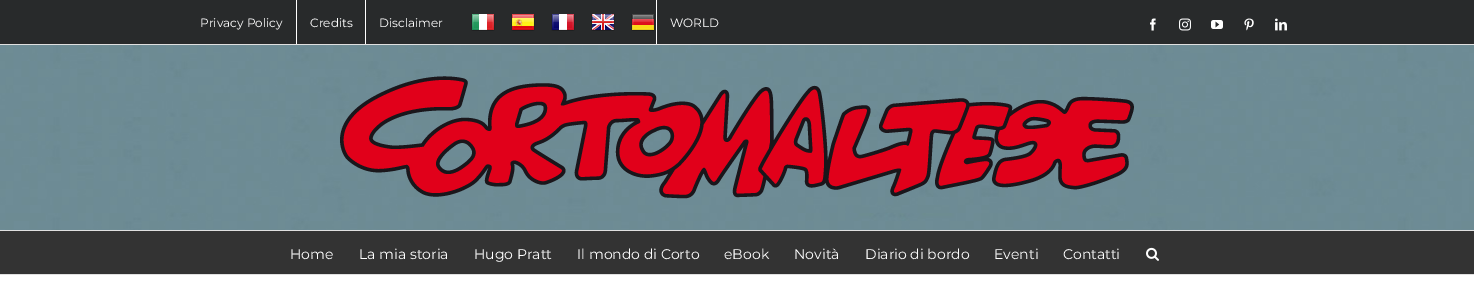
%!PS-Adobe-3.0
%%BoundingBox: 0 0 1474 303
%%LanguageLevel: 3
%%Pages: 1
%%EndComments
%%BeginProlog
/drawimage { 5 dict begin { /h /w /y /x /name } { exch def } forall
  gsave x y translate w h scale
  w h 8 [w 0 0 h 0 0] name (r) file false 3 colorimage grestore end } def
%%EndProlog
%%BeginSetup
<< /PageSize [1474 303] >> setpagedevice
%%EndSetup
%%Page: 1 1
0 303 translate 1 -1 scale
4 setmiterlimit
1 setgray
0 0 1474 303 rectfill
0.157 0.165 0.169 setrgbcolor
0 0 1474 44 rectfill
0.878 setgray
0 44 1474 1 rectfill
1 setgray
296 0 1 44 rectfill
365 0 1 44 rectfill
(images/1.raw) 471 14 24 17 drawimage
(images/2.raw) 511 14 24 17 drawimage
(images/3.raw) 551 14 24 17 drawimage
(images/4.raw) 591 14 24 17 drawimage
(images/5.raw) 631 14 24 17 drawimage
656 0 1 44 rectfill
(images/6.raw) 1150 18 6 13 drawimage
(images/7.raw) 1179 18 12 13 drawimage
(images/8.raw) 1211 20 12 9 drawimage
(images/9.raw) 1244 18 10 13 drawimage
(images/10.raw) 1275 18 12 13 drawimage
(images/11.raw) 0 45 1474 185 drawimage
0.878 setgray
0 230 1474 1 rectfill
(images/12.raw) 340 76 794 123 drawimage
0.2 setgray
0 231 1474 43 rectfill
0.878 setgray
0 274 1474 1 rectfill
(images/13.raw) 1146 247 13 14 drawimage
/Montserrat-Regular [12 0 0 -12 0 0] selectfont
1 setgray
200 27 moveto (Privacy Policy) show
310 27 moveto (Credits) show
379 27 moveto (Disclaimer) show
670 27 moveto (WORLD) show
/Montserrat-Regular [14 0 0 -14 0 0] selectfont
290 259 moveto (Home) show
359 259 moveto (La mia storia) show
474 259 moveto (Hugo Pratt) show
577 259 moveto (Il mondo di Corto) show
724 259 moveto (eBook) show
794 259 moveto (Novità) show
865 259 moveto (Diario di bordo) show
994 259 moveto (Eventi) show
1063 259 moveto (Contatti) show
showpage
%%EOF
